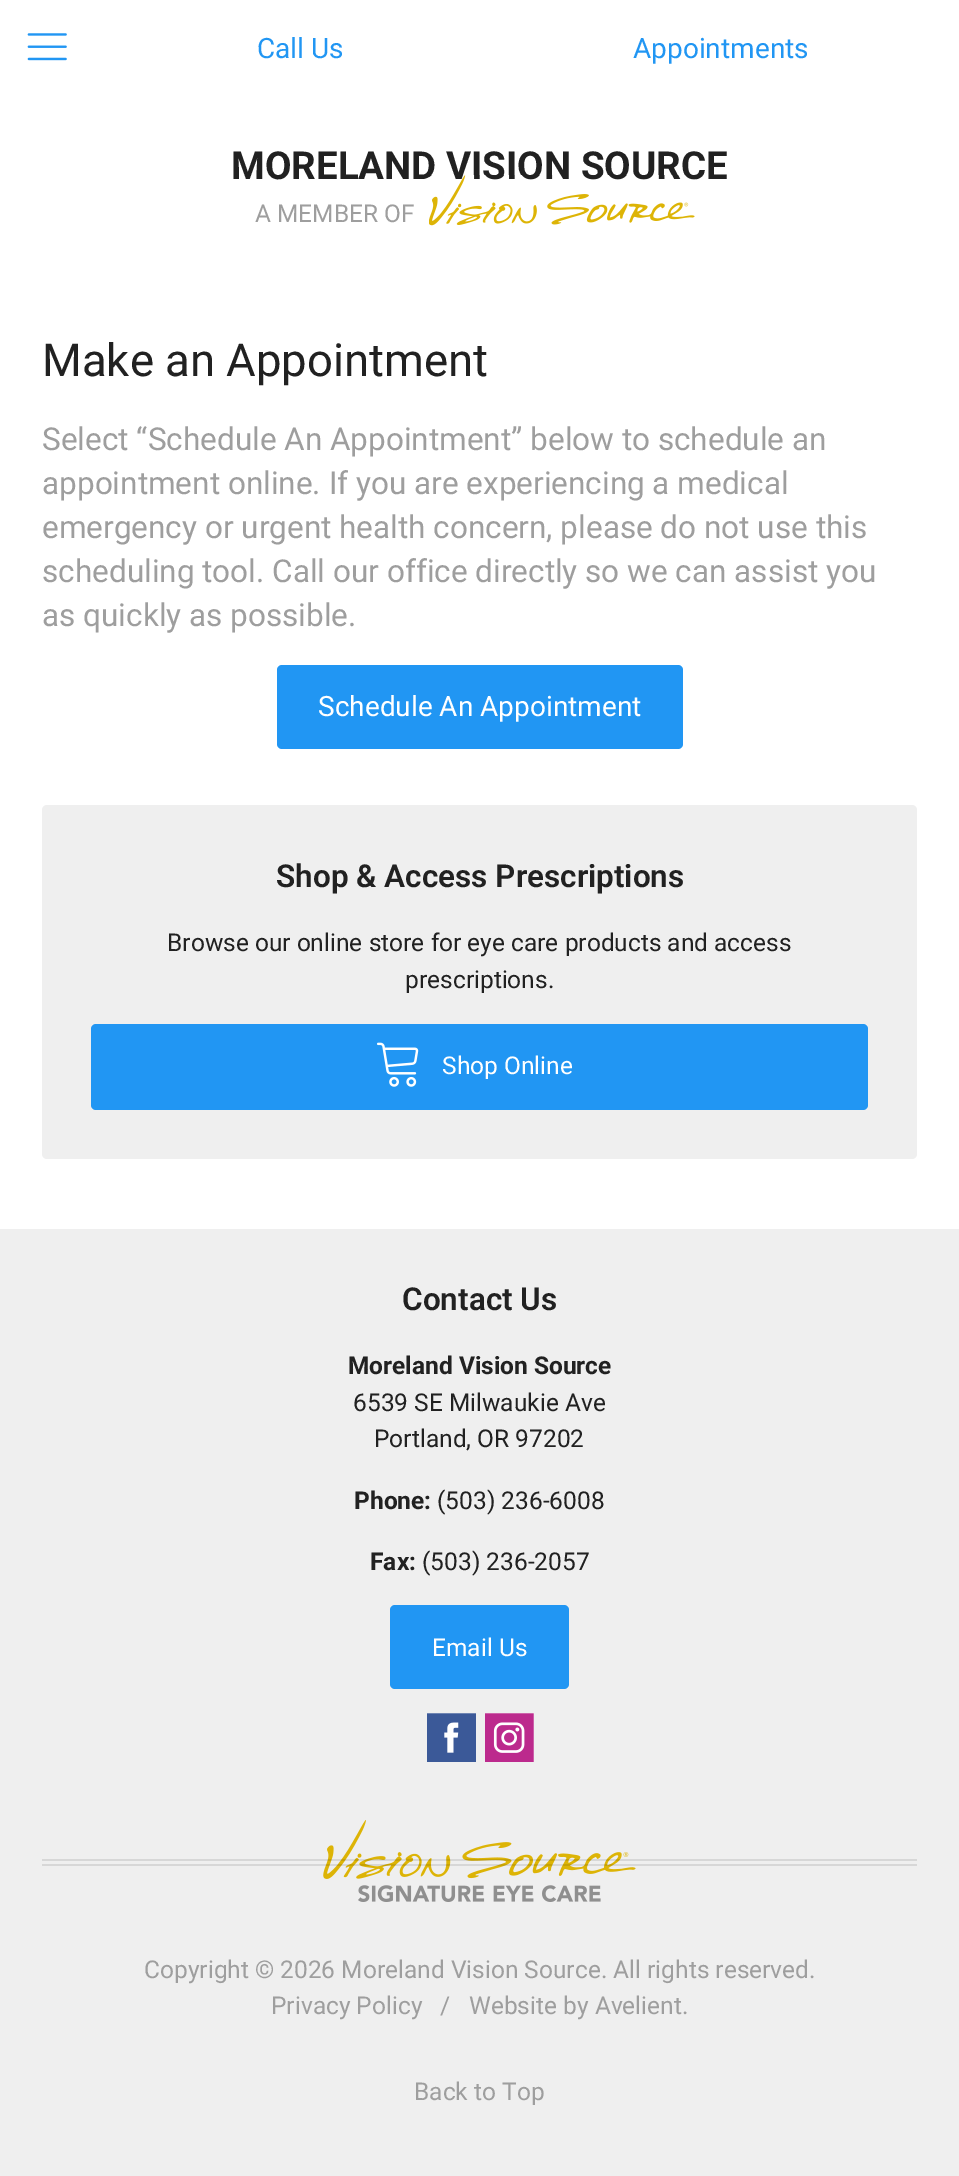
%!PS-Adobe-3.0
%%BoundingBox: 0 0 959 2176
%%LanguageLevel: 3
%%Pages: 1
%%EndComments
%%BeginProlog
/setalpha { dup .setfillconstantalpha .setstrokeconstantalpha } def
/rrect { 5 dict begin { /r /h /w /y /x } { exch def } forall
  x r add y moveto x w add y 2 copy h add r arct x w add y h add x 1 index r arct
  x y h add x y r arct x y 2 copy exch w add exch r arct closepath end } def
/drawimage { 5 dict begin { /h /w /y /x /name } { exch def } forall
  gsave x y translate w h scale
  w h 8 [w 0 0 h 0 0] name (r) file false 3 colorimage grestore end } def
%%EndProlog
%%BeginSetup
<< /PageSize [959 2176] /PageUsesTransparency true >> setpagedevice
%%EndSetup
%%Page: 1 1
0 .pushpdf14devicefilter
0 2176 translate 1 -1 scale
4 setmiterlimit
0.937 setgray
0 0 959 2176 rectfill
1 setgray
0 0 959 1229 rectfill
(images/1.raw) 27 33 40 28 drawimage
0.129 0.588 0.953 setrgbcolor
277 665 406 84 5 rrect fill
0.937 setgray
42 805 875 354 5 rrect fill
0.129 0.588 0.953 setrgbcolor
91 1024 777 86 5 rrect fill
(images/3.raw) 377 1042 42 45 drawimage
390 1605 179 84 5 rrect fill
1 setgray
427 1713 49 40 rectfill
(images/4.raw) 427 1713 49 49 drawimage
485 1713 49 49 rectfill
(images/5.raw) 485 1713 49 49 drawimage
(images/6.raw) 323 1820 313 82 drawimage
0.1 setalpha
0 setgray
42 1859 875 2 rectfill
42 1864 875 2 rectfill
/Roboto-Regular [28 0 0 -28 0 0] selectfont
1 setalpha
0.129 0.588 0.953 setrgbcolor
257 58 moveto (Call Us) show
633 58 moveto (Appointments) show
/Roboto-Bold [38.5 0 0 -38.5 0 0] selectfont
0.129 setgray
231 179 moveto (MORELAND VISION SOURCE) show
/Roboto-Regular [24.5 0 0 -24.5 0 0] selectfont
0.62 setgray
255 222 moveto (A MEMBER OF) show
(images/2.raw) 429 175 266 51 drawimage
/Roboto-Regular [45.5 0 0 -45.5 0 0] selectfont
0.129 setgray
42 376 moveto (Make an Appointment) show
/Roboto-Regular [31.5 0 0 -31.5 0 0] selectfont
0.62 setgray
42 450 moveto (Select “Schedule An Appointment” below to schedule an) show
42 494 moveto (appointment online. If you are experiencing a medical) show
42 538 moveto (emergency or urgent health concern, please do not use this) show
42 582 moveto (scheduling tool. Call our office directly so we can assist you) show
42 626 moveto (as quickly as possible.) show
/Roboto-Regular [28 0 0 -28 0 0] selectfont
1 setgray
318 716 moveto (Schedule An Appointment) show
/Roboto-SemiBold [31.5 0 0 -31.5 0 0] selectfont
0.129 setgray
276 887 moveto (Shop & Access Prescriptions) show
/Roboto-Regular [24.5 0 0 -24.5 0 0] selectfont
167 951 moveto (Browse our online store for eye care products and access) show
405 988 moveto (prescriptions.) show
1 setgray
442 1074 moveto (Shop Online) show
/Roboto-SemiBold [31.5 0 0 -31.5 0 0] selectfont
0.129 setgray
402 1310 moveto (Contact Us) show
/Roboto-Bold [24.5 0 0 -24.5 0 0] selectfont
348 1374 moveto (Moreland Vision Source) show
/Roboto-Regular [24.5 0 0 -24.5 0 0] selectfont
353 1411 moveto (6539 SE Milwaukie Ave) show
374 1447 moveto (Portland, OR 97202) show
/Roboto-Bold [24.5 0 0 -24.5 0 0] selectfont
354 1509 moveto (Phone:) show
/Roboto-Regular [24.5 0 0 -24.5 0 0] selectfont
437 1509 moveto (\(503\) 236-6008) show
/Roboto-Bold [24.5 0 0 -24.5 0 0] selectfont
370 1570 moveto (Fax:) show
/Roboto-Regular [24.5 0 0 -24.5 0 0] selectfont
422 1570 moveto (\(503\) 236-2057) show
1 setgray
432 1656 moveto (Email Us) show
0.62 setgray
144 1978 moveto (Copyright © 2026 Moreland Vision Source. All rights reserved.) show
271 2014 moveto (Privacy Policy) show
440 2014 moveto (/) show
469 2014 moveto (Website by Avelient.) show
414 2100 moveto (Back to Top) show
.poppdf14devicefilter showpage
%%EOF
